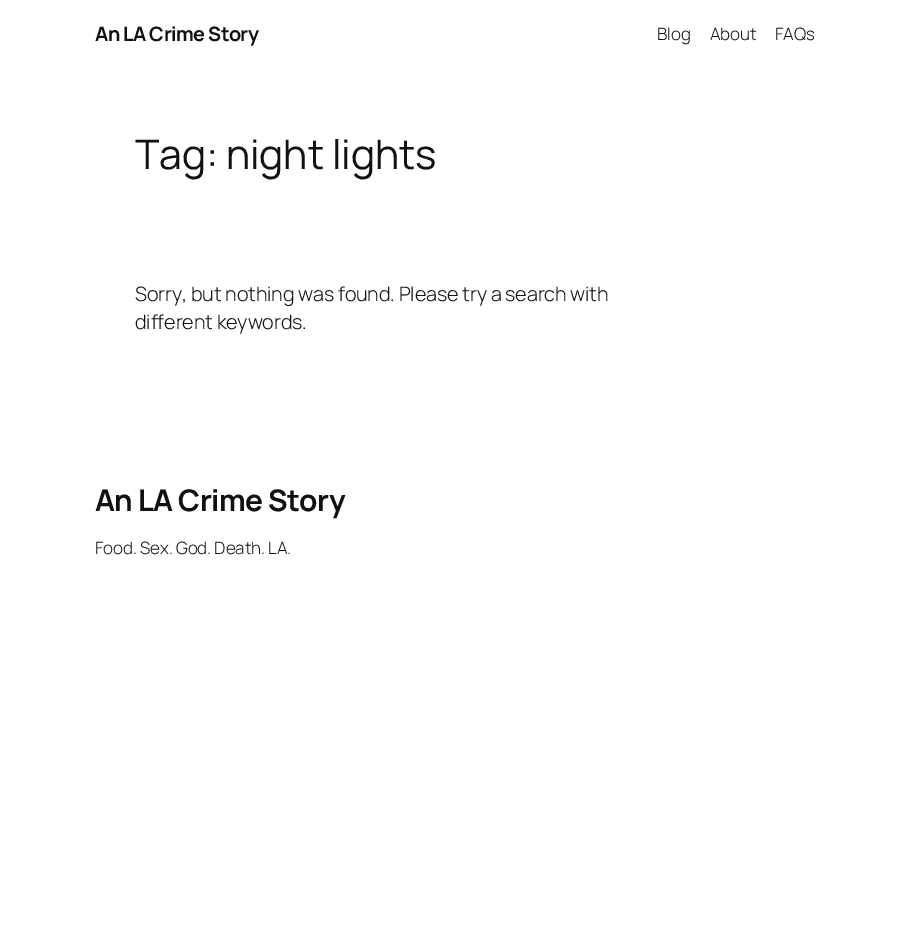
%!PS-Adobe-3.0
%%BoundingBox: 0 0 909 951
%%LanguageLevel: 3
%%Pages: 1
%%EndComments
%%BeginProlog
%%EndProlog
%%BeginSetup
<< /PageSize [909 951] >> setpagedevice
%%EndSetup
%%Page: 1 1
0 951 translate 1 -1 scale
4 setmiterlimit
1 setgray
0 0 909 951 rectfill
/Manrope-Bold [19.8 0 0 -19.8 0 0] selectfont
0.067 setgray
95 41 moveto -0.5 0 (An LA Crime Story) ashow
/Manrope-Light [17 0 0 -17 0 0] selectfont
657 40 moveto -0.1 0 (Blog) ashow
710 40 moveto -0.1 0 (About) ashow
775 40 moveto -0.1 0 (FAQs) ashow
/Manrope-Regular [40.75 0 0 -40.75 0 0] selectfont
135 169 moveto -0.1 0 (Tag: night lights) ashow
/Manrope-Light [19.8 0 0 -19.8 0 0] selectfont
135 301 moveto -0.1 0 (Sorry, but nothing was found. Please try a search with) ashow
135 329 moveto -0.1 0 (different keywords.) ashow
/Manrope-Bold [29.75 0 0 -29.75 0 0] selectfont
95 511 moveto -0.5 0 (An LA Crime Story) ashow
/Manrope-Light [17 0 0 -17 0 0] selectfont
95 554 moveto -0.1 0 (Food. Sex. God. Death. LA.) ashow
showpage
%%EOF
